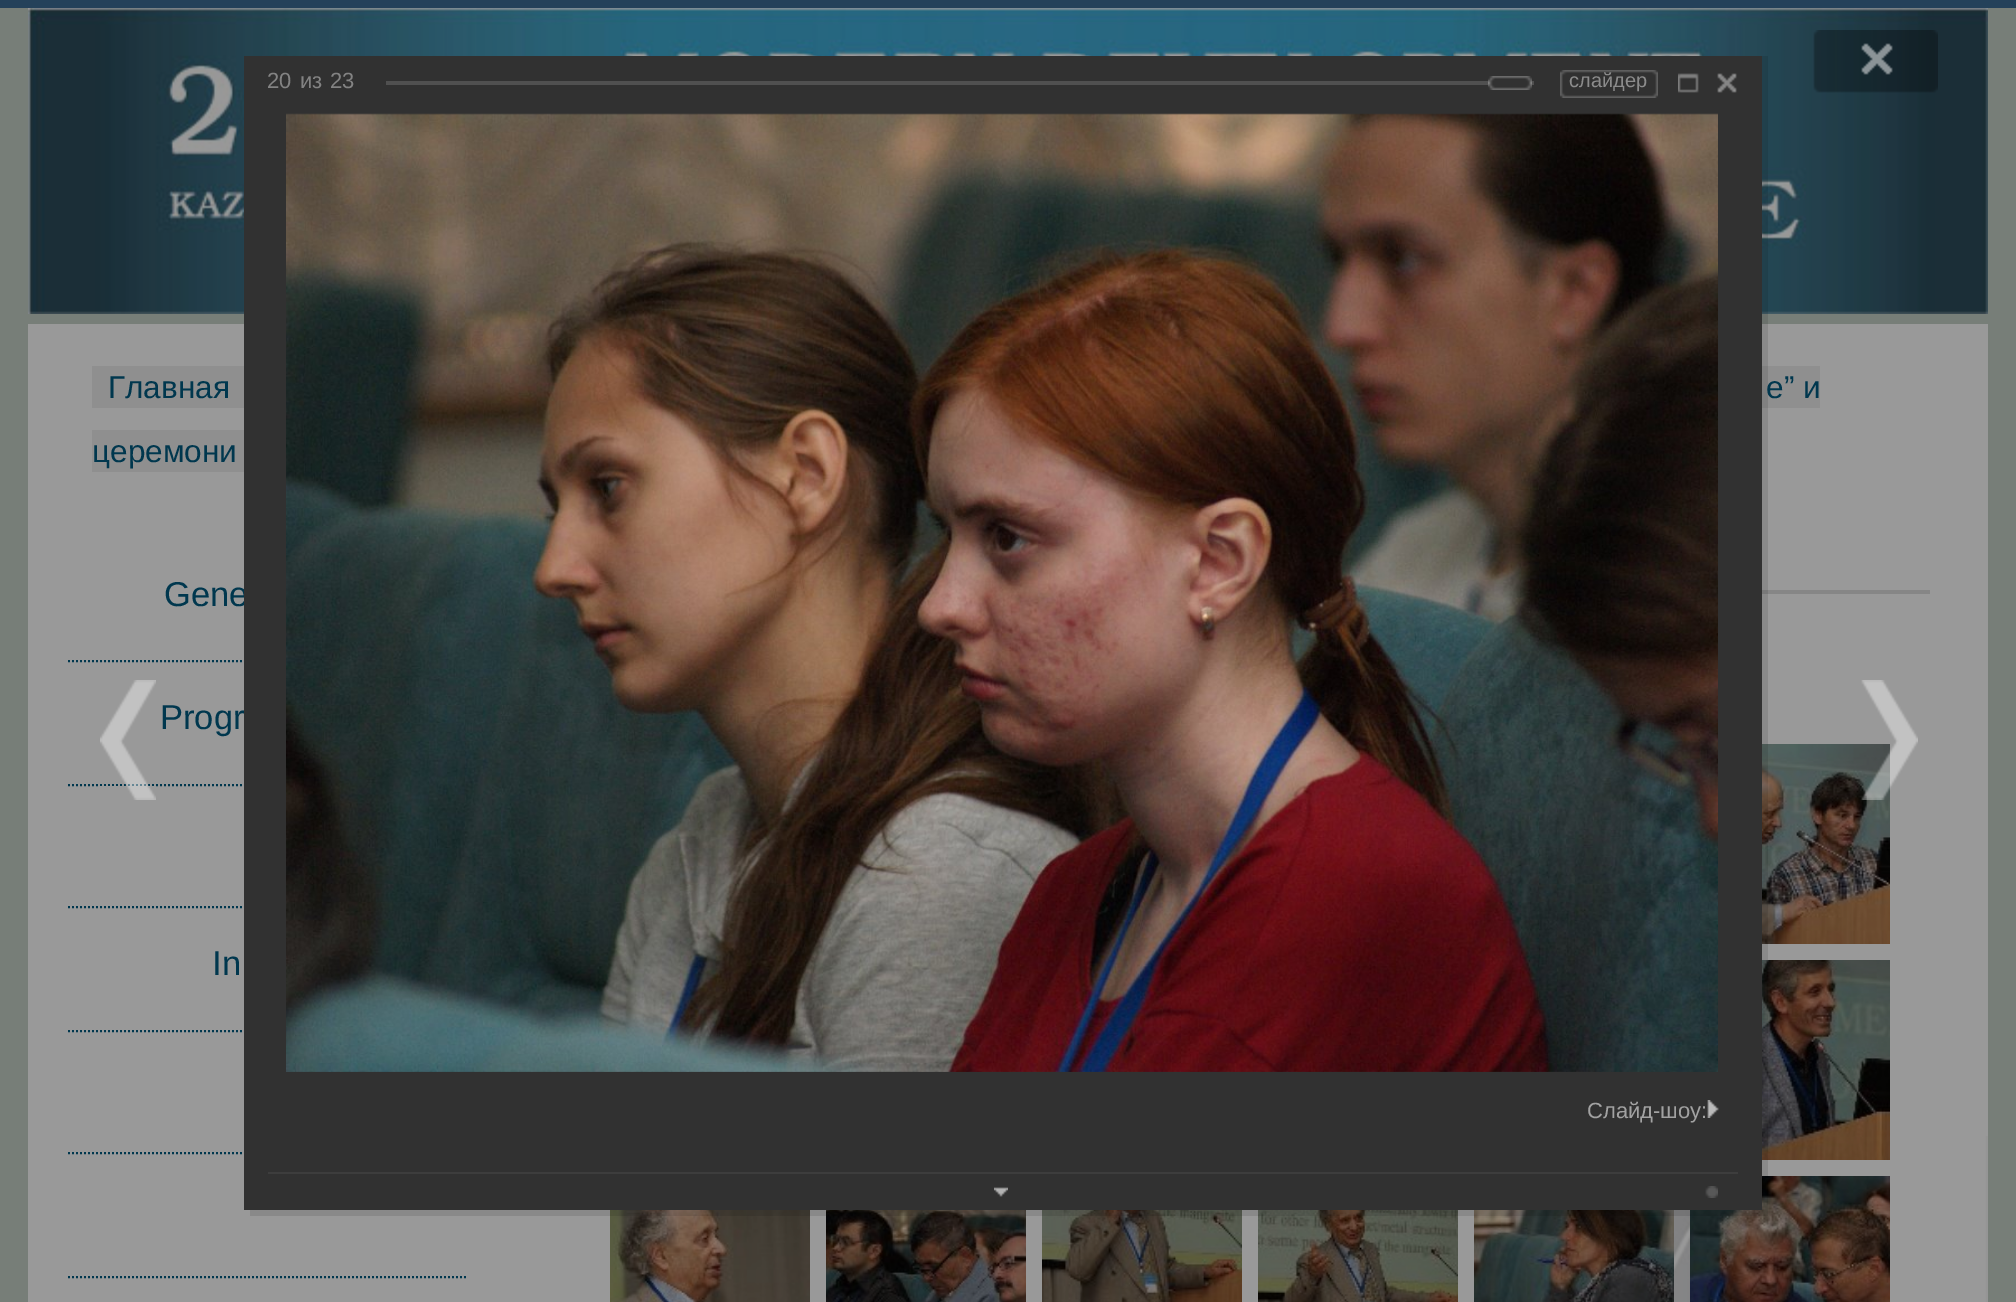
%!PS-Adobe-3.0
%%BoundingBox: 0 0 2016 1302
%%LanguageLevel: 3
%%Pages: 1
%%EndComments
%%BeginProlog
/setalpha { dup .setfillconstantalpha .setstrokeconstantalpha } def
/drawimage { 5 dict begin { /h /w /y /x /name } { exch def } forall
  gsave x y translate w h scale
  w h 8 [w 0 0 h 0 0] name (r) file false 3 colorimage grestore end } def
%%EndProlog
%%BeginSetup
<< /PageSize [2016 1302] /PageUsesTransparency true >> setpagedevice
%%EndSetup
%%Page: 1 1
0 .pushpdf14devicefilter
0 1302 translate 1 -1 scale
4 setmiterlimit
0.467 0.494 0.471 setrgbcolor
0 0 2016 1302 rectfill
0.6 setgray
28 324 1960 978 rectfill
0 0.216 0.306 setrgbcolor
2 setlinewidth
[2 2] 0 setdash
newpath 68 785 moveto 468 785 lineto stroke
(images/1.raw) 100 680 56 120 drawimage
(images/13.raw) 28 8 1960 306 drawimage
0.561 setgray
1762 366 58 42 rectfill
0 0.216 0.306 setrgbcolor
newpath 68 661 moveto 468 661 lineto stroke
newpath 68 907 moveto 468 907 lineto stroke
newpath 68 1031 moveto 468 1031 lineto stroke
newpath 68 1153 moveto 468 1153 lineto stroke
(images/14.raw) 1674 1136 314 166 drawimage
0.525 setgray
1762 590 168 4 rectfill
(images/15.raw) 1762 744 128 200 drawimage
(images/16.raw) 1762 960 128 200 drawimage
(images/17.raw) 610 1210 200 92 drawimage
(images/18.raw) 826 1210 200 92 drawimage
(images/19.raw) 1042 1210 200 92 drawimage
(images/20.raw) 1258 1210 200 92 drawimage
(images/21.raw) 1474 1210 200 92 drawimage
(images/22.raw) 1690 1176 200 126 drawimage
0.1 setalpha
0 setgray
250 56 1518 1160 rectfill
1 setalpha
(images/11.raw) 1813 30 125 63 drawimage
(images/12.raw) 1861 680 57 120 drawimage
0.141 0.255 0.353 setrgbcolor
0 0 2016 8 rectfill
0.561 setgray
92 366 152 42 rectfill
92 430 152 42 rectfill
0 0.216 0.306 setrgbcolor
newpath 68 1277 moveto 468 1277 lineto stroke
/LiberationSans-Regular [31.5 0 0 -31.5 0 0] selectfont
108 398 moveto (Главная) show
1766 398 moveto (e” и) show
92 462 moveto (церемони) show
/LiberationSans-Regular [34.5 0 0 -34.5 0 0] selectfont
164 606 moveto (Gene) show
0.192 setgray
244 56 1518 1154 rectfill
(images/10.raw) 1705 1186 13 12 drawimage
(images/9.raw) 994 1187 14 10 drawimage
(images/8.raw) 1707 1100 12 18 drawimage
/LiberationSans-Regular [22 0 0 -22 0 0] selectfont
0.635 setgray
1587 1118 moveto (Слайд-шоу:) show
0.239 setgray
268 1172 1470 2 rectfill
0.314 setgray
386 81 1148 4 rectfill
(images/2.raw) 1488 76 44 14 drawimage
(images/6.raw) 1717 73 20 20 drawimage
(images/5.raw) 1678 73 21 20 drawimage
(images/4.raw) 1652 70 6 28 drawimage
(images/3.raw) 1560 70 92 28 drawimage
/LiberationSans-Regular [20 0 0 -20 0 0] selectfont
0.549 setgray
1569 87 moveto (слайдер) show
/LiberationSans-Regular [22 0 0 -22 0 0] selectfont
0.514 setgray
330 88 moveto (23) show
300 88 moveto (из) show
267 88 moveto (20) show
(images/7.raw) 286 113 1432 959 drawimage
/LiberationSans-Regular [34.5 0 0 -34.5 0 0] selectfont
0 0.216 0.306 setrgbcolor
160 729 moveto (Progr) show
212 975 moveto (In) show
.poppdf14devicefilter showpage
%%EOF
